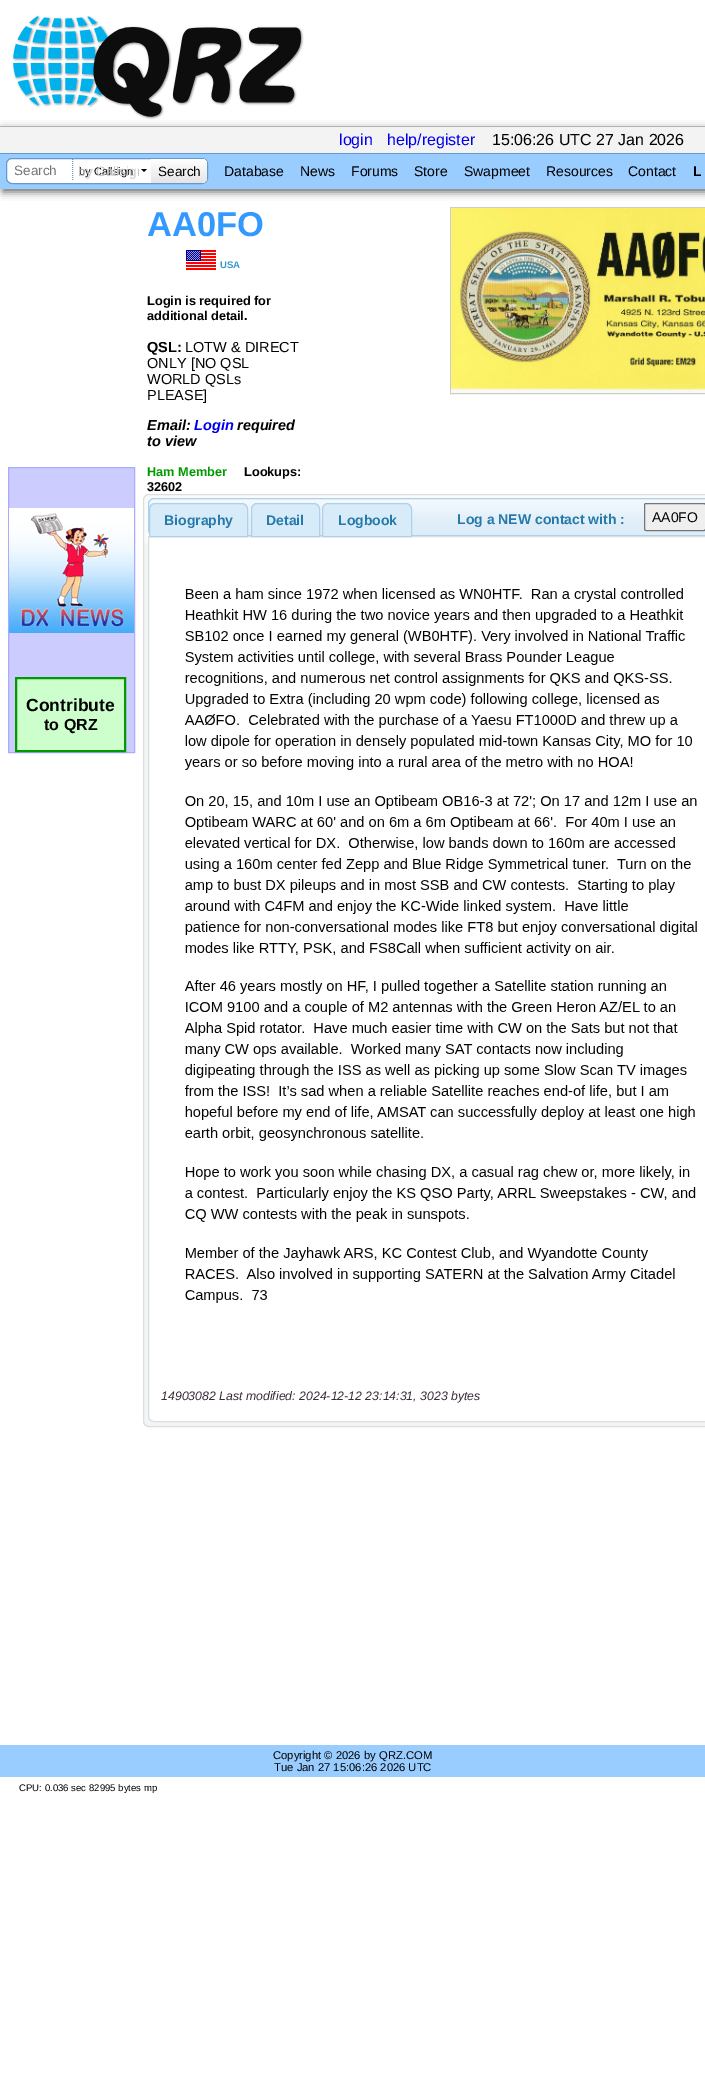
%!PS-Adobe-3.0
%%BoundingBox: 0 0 705 2088
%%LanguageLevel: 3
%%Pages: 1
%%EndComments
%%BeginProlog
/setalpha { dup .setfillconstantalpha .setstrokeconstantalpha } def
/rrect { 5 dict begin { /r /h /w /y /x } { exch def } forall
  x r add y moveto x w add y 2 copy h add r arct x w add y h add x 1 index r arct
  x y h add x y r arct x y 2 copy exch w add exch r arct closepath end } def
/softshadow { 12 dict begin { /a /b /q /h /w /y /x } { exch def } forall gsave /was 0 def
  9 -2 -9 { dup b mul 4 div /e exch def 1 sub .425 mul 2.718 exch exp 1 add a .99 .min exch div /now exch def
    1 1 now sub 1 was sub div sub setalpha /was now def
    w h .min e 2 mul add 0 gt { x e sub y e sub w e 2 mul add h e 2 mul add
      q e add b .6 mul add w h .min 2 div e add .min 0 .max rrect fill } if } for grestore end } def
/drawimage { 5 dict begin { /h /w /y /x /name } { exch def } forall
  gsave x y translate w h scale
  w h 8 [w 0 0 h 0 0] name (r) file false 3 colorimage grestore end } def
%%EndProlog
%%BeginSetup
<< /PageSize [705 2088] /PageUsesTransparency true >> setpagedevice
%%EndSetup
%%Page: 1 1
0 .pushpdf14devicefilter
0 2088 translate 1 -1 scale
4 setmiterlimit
1 setgray
0 0 705 2088 rectfill
0.4 setgray
3 129 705 63 0 4 1 softshadow
(images/1.raw) 12 15 292 105 drawimage
0.953 setgray
0 127 705 26 rectfill
0.702 setgray
0 126 705 1 rectfill
0.6 0.8 1 setrgbcolor
0 154 705 35 rectfill
0.4 0.6 0.8 setrgbcolor
0 153 705 1 rectfill
1 setgray
6.5 158.5 201 25 5.5 rrect gsave fill grestore
0.4 0.6 0.8 setrgbcolor
stroke
[1 1] 0 setdash
newpath 72.5 159 moveto 72.5 181 lineto stroke
0 setgray
newpath 141 169 moveto 147 169 lineto 144 172 lineto closepath fill
gsave newpath 151 159 moveto 201 159 lineto 204.5 159 207 161.5 207 165 curveto 207 177 lineto 207 180.5 204.5 183 201 183 curveto 151 183 lineto closepath clip newpath
<< /ShadingType 2 /ColorSpace /DeviceRGB /Coords [179 159 179 183] /Extend [true true] /Function << /FunctionType 2 /Domain [0 1] /C0 [1 1 1] /C1 [0.898 0.898 0.898] /N 1 >> >> shfill grestore
0.8 0.8 1 setrgbcolor
newpath 8.5 467.5 moveto 134.5 467.5 lineto 134.5 752.5 lineto 8.5 752.5 lineto closepath gsave fill grestore
0.667 0.667 1 setrgbcolor
[] 0 setdash
stroke
(images/2.raw) 9 508 125 125 drawimage
0.8 1 0.8 setrgbcolor
newpath 16 678 moveto 125 678 lineto 125 751 lineto 16 751 lineto closepath gsave fill grestore
0 0.6 0 setrgbcolor
2 setlinewidth
stroke
(images/3.raw) 186 250 30 20 drawimage
0.8 setgray
1 setlinewidth
450.5 207.5 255 186 rectstroke
(images/4.raw) 451 208 254 185 drawimage
0.949 0.961 0.969 setrgbcolor
143 494 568 933 6 rrect fill
(images/5.raw) 143 495 562 49 drawimage
0.867 setgray
143.5 494.5 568 932 5.5 rrect stroke
(images/6.raw) 148 498 557 37 drawimage
0.682 0.816 0.918 setrgbcolor
148.5 498.5 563 37 5.5 rrect stroke
1 setgray
newpath 148.5 536.5 moveto 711.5 536.5 lineto 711.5 1416 lineto 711.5 1419 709 1421.5 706 1421.5 curveto 154 1421.5 lineto 151 1421.5 148.5 1419 148.5 1416 curveto closepath gsave fill grestore
0.867 setgray
stroke
0.843 0.922 0.976 setrgbcolor
newpath 155 503.5 moveto 242 503.5 lineto 245 503.5 247.5 506 247.5 509 curveto 247.5 536.5 lineto 149.5 536.5 lineto 149.5 509 lineto 149.5 506 152 503.5 155 503.5 curveto closepath gsave fill grestore
0.682 0.816 0.918 setrgbcolor
stroke
0.843 0.922 0.976 setrgbcolor
newpath 257 503.5 moveto 314 503.5 lineto 317 503.5 319.5 506 319.5 509 curveto 319.5 536.5 lineto 251.5 536.5 lineto 251.5 509 lineto 251.5 506 254 503.5 257 503.5 curveto closepath gsave fill grestore
0.682 0.816 0.918 setrgbcolor
stroke
0.843 0.922 0.976 setrgbcolor
newpath 328 503.5 moveto 406 503.5 lineto 409 503.5 411.5 506 411.5 509 curveto 411.5 536.5 lineto 322.5 536.5 lineto 322.5 509 lineto 322.5 506 325 503.5 328 503.5 curveto closepath gsave fill grestore
0.682 0.816 0.918 setrgbcolor
stroke
0.937 setgray
644.5 503.5 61 27 1.5 rrect gsave fill grestore
0.463 setgray
stroke
(images/7.raw) 184 588 513 715 drawimage
0.6 0.8 1 setrgbcolor
0 1745 705 32 rectfill
/LiberationSans-Regular [16 0 0 -16 0 0] selectfont
0 0 0.933 setrgbcolor
339 145 moveto (login) show
387 145 moveto (help/register) show
0 setgray
492 145 moveto (15:06:26 UTC 27 Jan 2026) show
/LiberationSans-Regular [13.5 0 0 -13.5 0 0] selectfont
0.459 setgray
14 175 moveto (Search) show
/LiberationSans-Regular [11 0 0 -11 0 0] selectfont
0 setgray
79 175 moveto (by Callsign) show
gsave
78 163 61 17 rectclip
/LiberationSans-Regular [13.5 0 0 -13.5 0 0] selectfont
0.78 setgray
78 176 moveto (by Callsign) show
grestore
/LiberationSans-Regular [13.5 0 0 -13.5 0 0] selectfont
158 176 moveto (Search) show
/LiberationSans-Regular [14 0 0 -14 0 0] selectfont
224 176 moveto (Database) show
300 176 moveto (News) show
351 176 moveto (Forums) show
414 176 moveto (Store) show
464 176 moveto (Swapmeet) show
546 176 moveto (Resources) show
628 176 moveto (Contact) show
/LiberationSans-Bold [14 0 0 -14 0 0] selectfont
693 176 moveto (L) show
/LiberationSans-Bold [17.5 0 0 -17.5 0 0] selectfont
26 711 moveto (Contribute) show
/LiberationSans-Bold [16 0 0 -16 0 0] selectfont
44 730 moveto (to QRZ) show
/LiberationSans-Bold [34.5 0 0 -34.5 0 0] selectfont
0.2 0.6 1 setrgbcolor
147 236 moveto (AA0FO) show
/LiberationSans-Bold [9.6 0 0 -9.6 0 0] selectfont
0.2 0.6 0.8 setrgbcolor
220 268 moveto (USA) show
/LiberationSans-Bold [12.75 0 0 -12.75 0 0] selectfont
0 setgray
147 305 moveto (Login is required for) show
147 320 moveto (additional detail.) show
/LiberationSans-Bold [14.5 0 0 -14.5 0 0] selectfont
147 352 moveto (QSL:) show
/LiberationSans-Regular [14.5 0 0 -14.5 0 0] selectfont
185 352 moveto (LOTW & DIRECT) show
147 368 moveto (ONLY [NO QSL) show
147 384 moveto (WORLD QSLs) show
147 400 moveto (PLEASE]) show
/LiberationSans-BoldItalic [14.5 0 0 -14.5 0 0] selectfont
147 430 moveto (Email:) show
0 0 0.933 setrgbcolor
194 430 moveto (Login) show
0 setgray
237 430 moveto (required) show
147 446 moveto (to view) show
/LiberationSans-Bold [12.75 0 0 -12.75 0 0] selectfont
0 0.6 0 setrgbcolor
147 476 moveto (Ham Member) show
0 setgray
244 476 moveto (Lookups:) show
147 491 moveto (32602) show
/LiberationSans-Bold [14 0 0 -14 0 0] selectfont
0.153 0.475 0.667 setrgbcolor
164 525 moveto (Biography) show
266 525 moveto (Detail) show
338 525 moveto (Logbook) show
457 524 moveto (Log a NEW contact with :) show
/LiberationSans-Regular [14 0 0 -14 0 0] selectfont
0 setgray
652 522 moveto (AA0FO) show
/LiberationSans-Italic [12.3 0 0 -12.3 0 0] selectfont
0.212 0.169 0.212 setrgbcolor
161 1400 moveto (14903082 Last modified: 2024-12-12 23:14:31, 3023 bytes) show
/LiberationSans-Regular [11.25 0 0 -11.25 0 0] selectfont
0 setgray
273 1759 moveto (Copyright © 2026 by QRZ.COM) show
274 1771 moveto (Tue Jan 27 15:06:26 2026 UTC) show
/LiberationSans-Regular [9.6 0 0 -9.6 0 0] selectfont
19 1791 moveto (CPU: 0.036 sec 82995 bytes mp) show
.poppdf14devicefilter showpage
%%EOF
